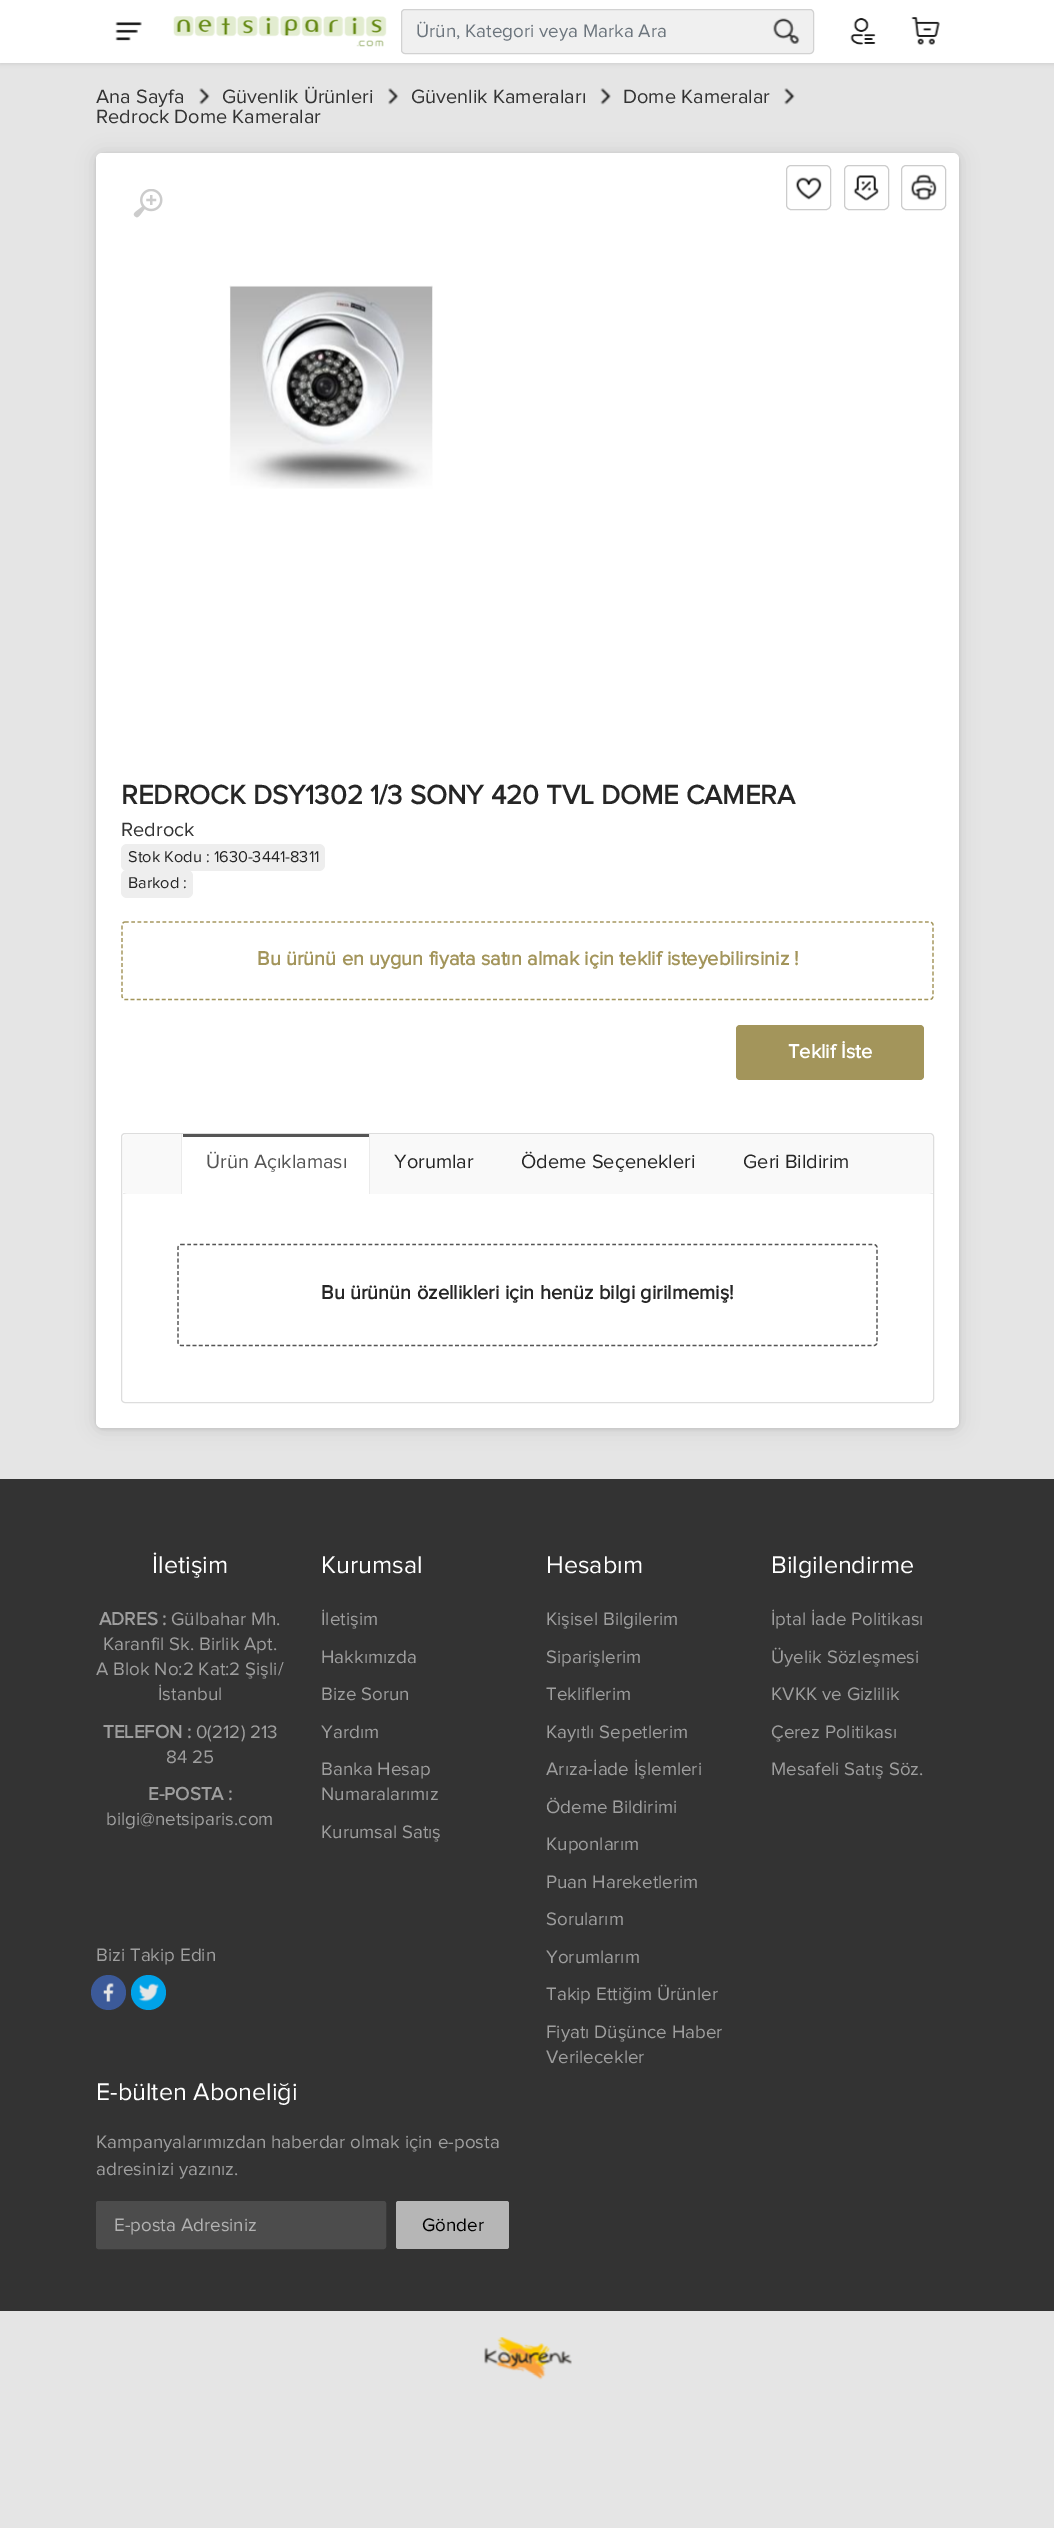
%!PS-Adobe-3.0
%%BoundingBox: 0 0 1054 2528
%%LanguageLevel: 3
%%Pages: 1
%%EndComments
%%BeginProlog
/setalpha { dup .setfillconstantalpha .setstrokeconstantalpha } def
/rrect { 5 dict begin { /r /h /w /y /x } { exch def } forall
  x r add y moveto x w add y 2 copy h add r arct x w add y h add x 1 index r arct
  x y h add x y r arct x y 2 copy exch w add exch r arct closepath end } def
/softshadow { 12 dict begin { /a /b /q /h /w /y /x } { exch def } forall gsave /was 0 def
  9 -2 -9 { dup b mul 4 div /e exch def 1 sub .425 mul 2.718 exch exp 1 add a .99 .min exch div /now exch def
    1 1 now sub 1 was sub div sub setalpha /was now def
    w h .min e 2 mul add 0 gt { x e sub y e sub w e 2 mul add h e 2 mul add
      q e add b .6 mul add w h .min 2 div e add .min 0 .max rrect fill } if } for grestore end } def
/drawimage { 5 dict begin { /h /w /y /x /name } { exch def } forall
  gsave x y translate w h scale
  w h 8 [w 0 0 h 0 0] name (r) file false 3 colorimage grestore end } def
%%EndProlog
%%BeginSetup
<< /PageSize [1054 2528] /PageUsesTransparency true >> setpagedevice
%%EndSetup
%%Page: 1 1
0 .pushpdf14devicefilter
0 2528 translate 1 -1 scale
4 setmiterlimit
0.898 setgray
0 0 1054 2528 rectfill
0 setgray
0 1 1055 63 0 2 0.09 softshadow
1 setgray
0 0 1054 63 rectfill
(images/1.raw) 115 22 27 19 drawimage
(images/2.raw) 173 16 214 31 drawimage
0.941 setgray
401.5 9.5 412 44 3.5 rrect gsave fill grestore
0.824 setgray
stroke
(images/3.raw) 773 18 27 26 drawimage
(images/4.raw) 850 18 26 27 drawimage
(images/5.raw) 911 17 29 28 drawimage
(images/6.raw) 199 88 11 17 drawimage
(images/7.raw) 388 88 11 17 drawimage
(images/8.raw) 600 88 11 17 drawimage
(images/6.raw) 784 88 11 17 drawimage
0 setgray
96 154 863 1275 6 2 0.1 softshadow
96 154 863 1275 6 9.5 0.1 softshadow
1 setgray
96 153 863 1275 6 rrect fill
(images/9.raw) 133 189 30 29 drawimage
(images/10.raw) 229 285 204 204 drawimage
0.8 setgray
786.5 165.5 44 44 4.5 rrect stroke
(images/11.raw) 795 177 27 23 drawimage
844.5 165.5 44 44 4.5 rrect stroke
(images/12.raw) 853 175 26 26 drawimage
901.5 165.5 44 44 4.5 rrect stroke
(images/13.raw) 910 174 27 27 drawimage
0.933 setgray
121 844 204 27 6 rrect fill
121 870 72 28 6 rrect fill
0.639 0.584 0.357 setrgbcolor
1.2 setlinewidth
[3.75 2.5] 0 setdash
newpath 125 922 moveto 930 922 lineto 931.5 922 933 923.5 933 925 curveto 933 996 lineto 933 998 931.5 999.5 930 999.5 curveto 125 999.5 lineto 123.5 999.5 122 998 122 996 curveto 122 925 lineto 122 923.5 123.5 922 125 922 curveto closepath stroke
736 1025 188 55 4 rrect fill
0.867 setgray
1 setlinewidth
[] 0 setdash
121.5 1133.5 812 269 3.5 rrect stroke
0.922 setgray
123 1193 810 1 rectfill
0.976 setgray
123 1134 810 60 5 rrect fill
1 setgray
182 1134 187 60 rectfill
0.333 setgray
183 1134 186 3 rectfill
0.922 setgray
369 1134 1 60 rectfill
181 1134 1 60 rectfill
0.333 setgray
1.2 setlinewidth
[3.75 2.5] 0 setdash
newpath 181 1244.5 moveto 874 1244.5 lineto 875.5 1244.5 877 1246 877 1247.5 curveto 877 1342.5 lineto 877 1344 875.5 1345.5 874 1345.5 curveto 181 1345.5 lineto 179.5 1345.5 178 1344 178 1342.5 curveto 178 1247.5 lineto 178 1246 179.5 1244.5 181 1244.5 curveto closepath stroke
0.2 setgray
0 1479 1054 832 rectfill
0.235 0.353 0.6 setrgbcolor
newpath 108.5 1992.5 17.5 0 360 arc closepath fill
(images/14.raw) 103 1983 11 19 drawimage
0 0.635 0.91 setrgbcolor
newpath 148.5 1992.5 17.5 0 360 arc closepath fill
(images/15.raw) 138 1983 21 19 drawimage
0.298 setgray
97.5 2202.5 287 45 1 rrect gsave fill grestore
3 setlinewidth
[] 0 setdash
stroke
0.714 setgray
396 2201 113 48 2.5 rrect fill
(images/16.raw) 484 2337 88 43 drawimage
/ProximaNova-Regular [18.75 0 0 -18.75 0 0] selectfont
0.424 0.459 0.49 setrgbcolor
416 37 moveto (Ürün, Kategori veya Marka Ara) show
/ProximaNova-Regular [20 0 0 -20 0 0] selectfont
0.2 setgray
96 103 moveto (Ana Sayfa) show
222 103 moveto (Güvenlik Ürünleri) show
411 103 moveto (Güvenlik Kameraları) show
623 103 moveto (Dome Kameralar) show
96 123 moveto (Redrock Dome Kameralar) show
/ProximaNova-Bold [27.5 0 0 -27.5 0 0] selectfont
0.149 setgray
121 804 moveto (REDROCK DSY1302 1/3 SONY 420 TVL DOME CAMERA) show
/ProximaNova-Regular [20 0 0 -20 0 0] selectfont
0.2 setgray
121 836 moveto (Redrock) show
/ProximaNova-Regular [16.25 0 0 -16.25 0 0] selectfont
0.149 setgray
128 862 moveto (Stok Kodu : 1630-3441-8311) show
128 888 moveto (Barkod :) show
/ProximaNova-Bold [20 0 0 -20 0 0] selectfont
0.639 0.584 0.357 setrgbcolor
257 965 moveto (Bu ürünü en uygun fiyata satın almak için teklif isteyebilirsiniz !) show
1 setgray
788 1058 moveto (Teklif İste) show
/ProximaNova-Regular [20 0 0 -20 0 0] selectfont
0.333 setgray
206 1168 moveto (Ürün Açıklaması) show
0.149 setgray
394 1168 moveto (Yorumlar) show
521 1168 moveto (Ödeme Seçenekleri) show
743 1168 moveto (Geri Bildirim) show
/ProximaNova-Bold [20 0 0 -20 0 0] selectfont
321 1299 moveto (Bu ürünün özellikleri için henüz bilgi girilmemiş!) show
/ProximaNova-Regular [25 0 0 -25 0 0] selectfont
1 setgray
152 1573 moveto (İletişim) show
/ProximaNova-Bold [18.75 0 0 -18.75 0 0] selectfont
0.62 setgray
99 1625 moveto (ADRES :) show
/ProximaNova-Regular [18.75 0 0 -18.75 0 0] selectfont
171 1625 moveto (Gülbahar Mh.) show
103 1650 moveto (Karanfil Sk. Birlik Apt.) show
96 1675 moveto (A Blok No:2 Kat:2 Şişli/) show
158 1700 moveto (İstanbul) show
/ProximaNova-Bold [18.75 0 0 -18.75 0 0] selectfont
103 1738 moveto (TELEFON :) show
/ProximaNova-Regular [18.75 0 0 -18.75 0 0] selectfont
196 1738 moveto (0\(212\) 213) show
166 1763 moveto (84 25) show
/ProximaNova-Bold [18.75 0 0 -18.75 0 0] selectfont
148 1800 moveto (E-POSTA :) show
/ProximaNova-Regular [18.75 0 0 -18.75 0 0] selectfont
106 1825 moveto (bilgi@netsiparis.com) show
96 1961 moveto (Bizi Takip Edin) show
/ProximaNova-Regular [25 0 0 -25 0 0] selectfont
1 setgray
321 1573 moveto (Kurumsal) show
/ProximaNova-Regular [18.75 0 0 -18.75 0 0] selectfont
0.62 setgray
321 1625 moveto (İletişim) show
321 1663 moveto (Hakkımızda) show
321 1700 moveto (Bize Sorun) show
321 1738 moveto (Yardım) show
321 1775 moveto (Banka Hesap) show
321 1800 moveto (Numaralarımız) show
321 1838 moveto (Kurumsal Satış) show
/ProximaNova-Regular [25 0 0 -25 0 0] selectfont
1 setgray
546 1573 moveto (Hesabım) show
/ProximaNova-Regular [18.75 0 0 -18.75 0 0] selectfont
0.62 setgray
546 1625 moveto (Kişisel Bilgilerim) show
546 1663 moveto (Siparişlerim) show
546 1700 moveto (Tekliflerim) show
546 1738 moveto (Kayıtlı Sepetlerim) show
546 1775 moveto (Arıza-İade İşlemleri) show
546 1813 moveto (Ödeme Bildirimi) show
546 1850 moveto (Kuponlarım) show
546 1888 moveto (Puan Hareketlerim) show
546 1925 moveto (Sorularım) show
546 1963 moveto (Yorumlarım) show
546 2000 moveto (Takip Ettiğim Ürünler) show
546 2038 moveto (Fiyatı Düşünce Haber) show
546 2063 moveto (Verilecekler) show
/ProximaNova-Regular [25 0 0 -25 0 0] selectfont
1 setgray
771 1573 moveto (Bilgilendirme) show
/ProximaNova-Regular [18.75 0 0 -18.75 0 0] selectfont
0.62 setgray
771 1625 moveto (İptal İade Politikası) show
771 1663 moveto (Üyelik Sözleşmesi) show
771 1700 moveto (KVKK ve Gizlilik) show
771 1738 moveto (Çerez Politikası) show
771 1775 moveto (Mesafeli Satış Söz.) show
/ProximaNova-Regular [25 0 0 -25 0 0] selectfont
1 setgray
96 2100 moveto (E-bülten Aboneliği) show
/ProximaNova-Regular [18.75 0 0 -18.75 0 0] selectfont
0.62 setgray
96 2148 moveto (Kampanyalarımızdan haberdar olmak için e-posta) show
96 2175 moveto (adresinizi yazınız.) show
0.698 setgray
114 2231 moveto (E-posta Adresiniz) show
0 setgray
422 2231 moveto (Gönder) show
.poppdf14devicefilter showpage
%%EOF
